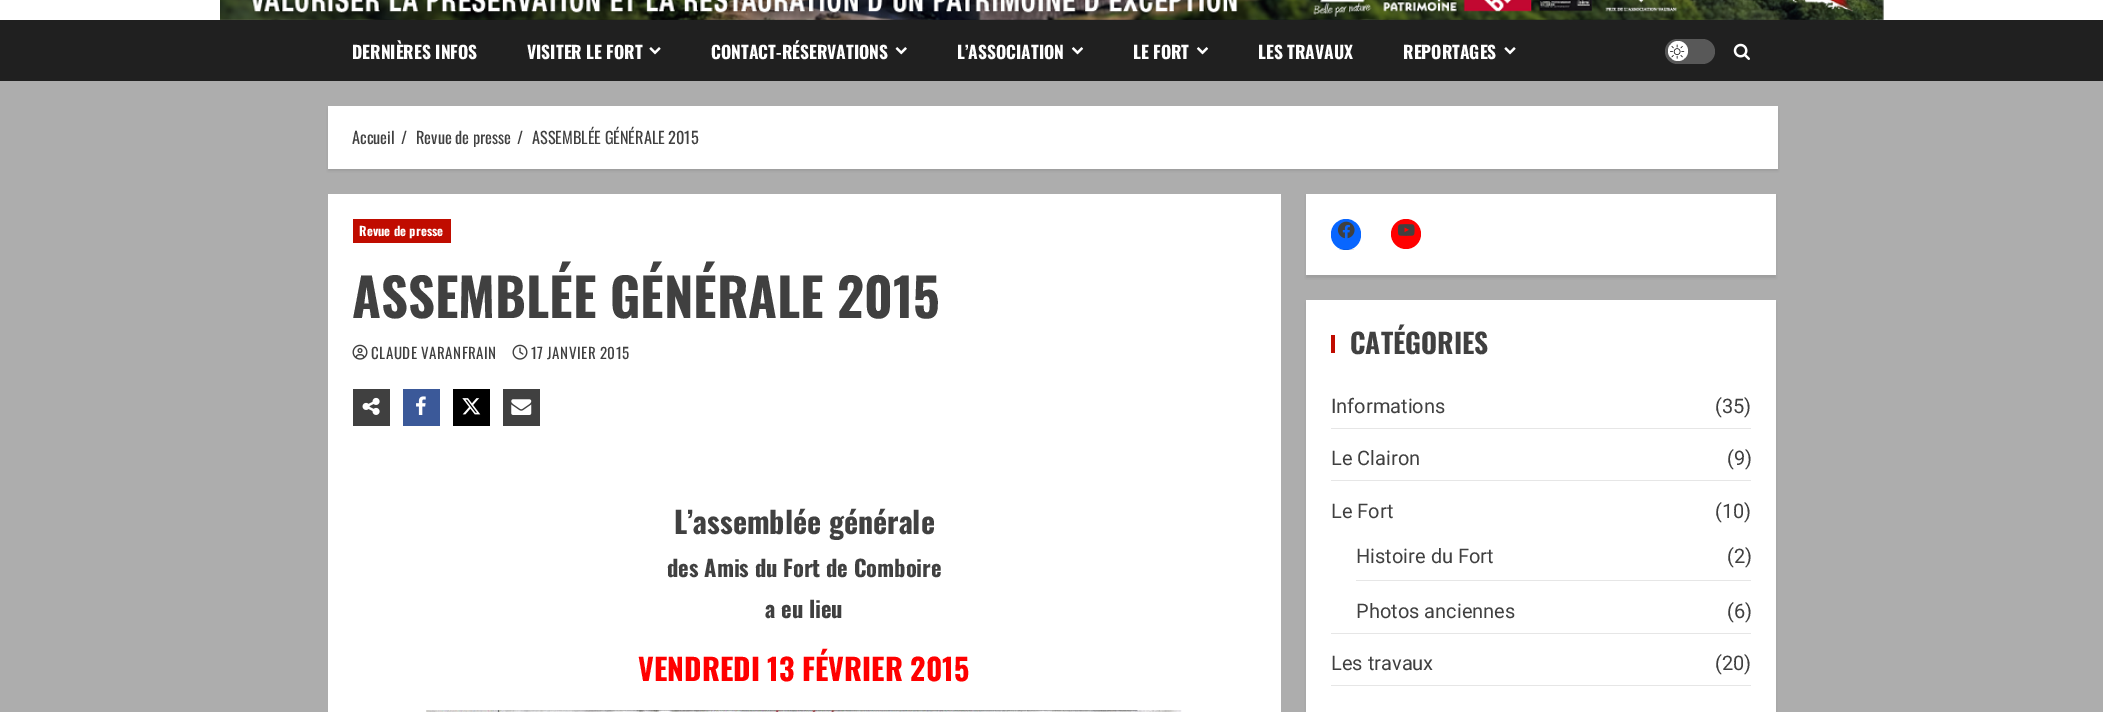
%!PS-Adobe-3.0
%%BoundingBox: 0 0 2103 712
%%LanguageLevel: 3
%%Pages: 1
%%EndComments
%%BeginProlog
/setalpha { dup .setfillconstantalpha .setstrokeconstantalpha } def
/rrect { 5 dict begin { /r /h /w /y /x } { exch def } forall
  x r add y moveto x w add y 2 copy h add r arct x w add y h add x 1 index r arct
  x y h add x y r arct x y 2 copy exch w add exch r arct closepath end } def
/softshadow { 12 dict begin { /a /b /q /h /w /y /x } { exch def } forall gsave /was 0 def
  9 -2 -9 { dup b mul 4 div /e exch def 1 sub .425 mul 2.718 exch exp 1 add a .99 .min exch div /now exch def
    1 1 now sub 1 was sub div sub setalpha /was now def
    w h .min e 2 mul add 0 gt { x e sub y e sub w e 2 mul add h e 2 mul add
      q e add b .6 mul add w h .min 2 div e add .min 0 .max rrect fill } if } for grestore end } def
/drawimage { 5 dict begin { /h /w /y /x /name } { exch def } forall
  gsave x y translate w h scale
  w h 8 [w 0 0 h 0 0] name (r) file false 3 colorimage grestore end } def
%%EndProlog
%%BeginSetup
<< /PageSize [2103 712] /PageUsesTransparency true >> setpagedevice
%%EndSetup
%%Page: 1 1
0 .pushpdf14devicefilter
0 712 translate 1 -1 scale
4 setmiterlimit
0.678 setgray
0 0 2103 712 rectfill
1 setgray
0 0 2103 20 rectfill
(images/1.raw) 220 0 1664 20 drawimage
0.125 setgray
0 20 2103 61 rectfill
(images/2.raw) 649 47 12 8 drawimage
(images/3.raw) 895 47 12 8 drawimage
(images/4.raw) 1071 47 13 8 drawimage
(images/4.raw) 1196 47 13 8 drawimage
(images/2.raw) 1504 47 12 8 drawimage
0.345 setgray
1665 39 50 25 12.5 rrect fill
1 setgray
newpath 1678 51 10 0 360 arc closepath fill
(images/5.raw) 1670 44 15 15 drawimage
(images/6.raw) 1733 43 17 17 drawimage
0 setgray
328 109 1450 62 0 1 0.08 softshadow
1 setgray
328 106 1450 63 rectfill
328 194 953 518 rectfill
0.753 0.047 0 setrgbcolor
353 219 98 24 rectfill
(images/7.raw) 352 344 16 16 drawimage
(images/8.raw) 512 344 16 16 drawimage
0.251 setgray
353 389 37 37 rectfill
(images/9.raw) 362 397 18 18 drawimage
0.231 0.349 0.6 setrgbcolor
403 389 37 37 rectfill
(images/10.raw) 416 396 10 19 drawimage
0 setgray
453 389 37 37 rectfill
(images/11.raw) 462 398 19 17 drawimage
0.251 setgray
503 389 37 37 rectfill
(images/12.raw) 511 399 21 16 drawimage
(images/13.raw) 426 710 756 2 drawimage
0 setgray
1306 196 470 82 0 1 0.08 softshadow
1 setgray
1306 194 470 81 rectfill
0.031 0.4 1 setrgbcolor
1331 219 30 31 15 rrect fill
0.1 setalpha
0 setgray
1339 249 15 1 rectfill
1 setalpha
(images/14.raw) 1337 221 18 18 drawimage
1 0 0 setrgbcolor
newpath 1406 234 15 0 360 arc closepath fill
(images/15.raw) 1397 224 18 12 drawimage
0 setgray
1306 303 470 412 0 1 0.08 softshadow
1 setgray
1306 300 470 412 rectfill
0.753 0.047 0 setrgbcolor
1331 335 4 18 rectfill
0.902 setgray
1331 428 420 1 rectfill
1331 480 420 1 rectfill
1331 633 420 1 rectfill
1356 580 395 1 rectfill
1331 685 420 1 rectfill
/Oswald-Bold [17.5 0 0 -17.5 0 0] selectfont
1 setgray
352 59 moveto (DERNIÈRES INFOS) show
527 59 moveto (VISITER LE FORT) show
711 59 moveto (CONTACT-RÉSERVATIONS) show
957 59 moveto (L’ASSOCIATION) show
1133 59 moveto (LE FORT) show
1258 59 moveto (LES TRAVAUX) show
1403 59 moveto (REPORTAGES) show
/Oswald-Regular [16.25 0 0 -16.25 0 0] selectfont
0.251 setgray
352 144 moveto (Accueil) show
401 144 moveto (/) show
416 144 moveto (Revue de presse) show
517 144 moveto (/) show
532 144 moveto (ASSEMBLÉE GÉNÉRALE 2015) show
/Oswald-Bold [12.5 0 0 -12.5 0 0] selectfont
1 setgray
359 236 moveto 0.1 0 (Revue de presse) ashow
/Oswald-Bold [52.5 0 0 -52.5 0 0] selectfont
0.251 setgray
352 318 moveto (ASSEMBLÉE GÉNÉRALE 2015) show
/Oswald-Regular [15 0 0 -15 0 0] selectfont
371 359 moveto 0.5 0 (CLAUDE VARANFRAIN) ashow
531 359 moveto 0.5 0 (17 JANVIER 2015) ashow
/Oswald-Bold [30 0 0 -30 0 0] selectfont
674 534 moveto (L’assemblée générale) show
/Oswald-Bold [22.5 0 0 -22.5 0 0] selectfont
667 577 moveto (des Amis du Fort de Comboire) show
765 618 moveto (a eu lieu) show
/Oswald-Bold [30 0 0 -30 0 0] selectfont
1 0 0 setrgbcolor
638 681 moveto (VENDREDI 13 FÉVRIER 2015) show
/Oswald-Bold [27.5 0 0 -27.5 0 0] selectfont
0.251 setgray
1350 354 moveto (CATÉGORIES) show
/Roboto-Regular [20 0 0 -20 0 0] selectfont
1331 413 moveto (Informations) show
1715 413 moveto (\(35\)) show
1331 465 moveto (Le Clairon) show
1727 465 moveto (\(9\)) show
1331 518 moveto (Le Fort) show
1715 518 moveto (\(10\)) show
1356 563 moveto (Histoire du Fort) show
1727 563 moveto (\(2\)) show
1356 618 moveto (Photos anciennes) show
1727 618 moveto (\(6\)) show
1331 670 moveto (Les travaux) show
1715 670 moveto (\(20\)) show
.poppdf14devicefilter showpage
%%EOF
